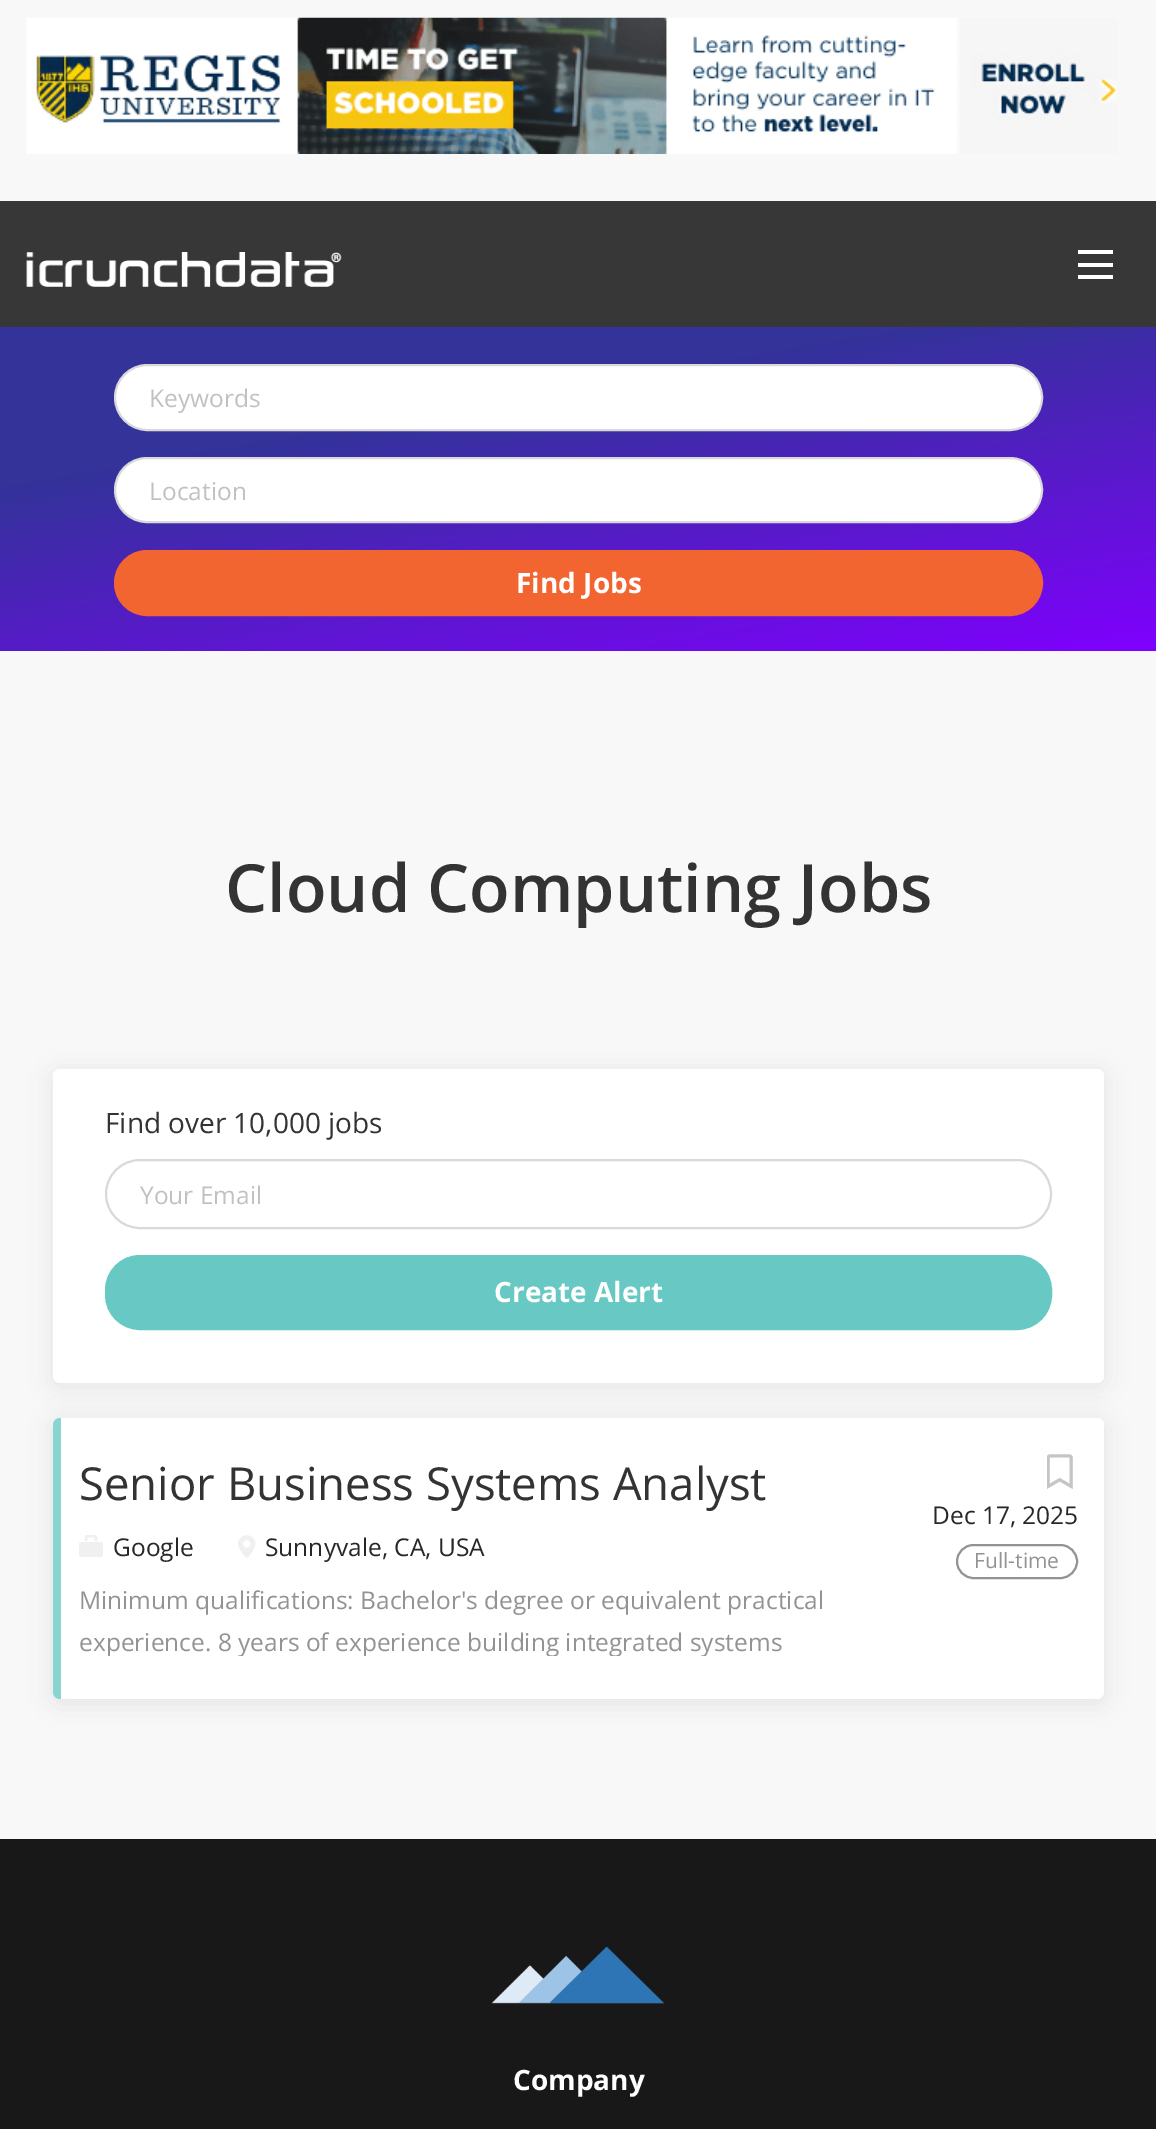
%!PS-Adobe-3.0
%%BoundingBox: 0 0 1156 2129
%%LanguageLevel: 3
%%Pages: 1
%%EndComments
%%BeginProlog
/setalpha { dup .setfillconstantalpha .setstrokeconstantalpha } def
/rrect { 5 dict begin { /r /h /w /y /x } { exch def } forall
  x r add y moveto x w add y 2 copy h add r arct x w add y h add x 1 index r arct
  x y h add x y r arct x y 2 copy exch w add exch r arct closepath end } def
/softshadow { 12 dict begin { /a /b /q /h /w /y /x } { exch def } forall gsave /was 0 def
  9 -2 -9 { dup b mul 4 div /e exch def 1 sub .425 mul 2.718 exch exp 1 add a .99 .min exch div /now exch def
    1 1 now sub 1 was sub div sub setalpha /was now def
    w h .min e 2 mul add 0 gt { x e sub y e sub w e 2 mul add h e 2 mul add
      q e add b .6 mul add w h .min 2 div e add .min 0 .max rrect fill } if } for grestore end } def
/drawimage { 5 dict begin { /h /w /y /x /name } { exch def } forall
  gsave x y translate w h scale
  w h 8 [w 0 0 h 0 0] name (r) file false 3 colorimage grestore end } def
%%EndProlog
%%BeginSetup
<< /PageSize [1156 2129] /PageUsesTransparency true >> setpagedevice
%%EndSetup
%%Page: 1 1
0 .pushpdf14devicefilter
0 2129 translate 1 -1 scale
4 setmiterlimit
0.973 setgray
0 0 1156 2129 rectfill
(images/1.raw) 26 17 1091 137 drawimage
0.216 setgray
0 201 1156 126 rectfill
(images/2.raw) 26 252 316 35 drawimage
1 setgray
1078 263 35 4 rectfill
1078 250 35 4 rectfill
1078 275 35 4 rectfill
gsave newpath 0 327 moveto 1156 327 lineto 1156 651 lineto 0 651 lineto closepath clip newpath
<< /ShadingType 2 /ColorSpace /DeviceRGB /Coords [533 233 623 745] /Extend [true true] /Function << /FunctionType 3 /Domain [0 1] /Functions [<< /FunctionType 2 /Domain [0 1] /C0 [0.2 0.2 0.6] /C1 [0.2 0.2 0.6] /N 1 >> << /FunctionType 2 /Domain [0 1] /C0 [0.2 0.2 0.6] /C1 [0.502 0 1] /N 1 >>] /Bounds [0.3] /Encode [0 1 0 1] >> >> shfill grestore
115 365 927 65 32.5 rrect gsave fill grestore
0.851 setgray
2 setlinewidth
stroke
1 setgray
115 458 927 64 32 rrect gsave fill grestore
0.851 setgray
stroke
0.949 0.392 0.188 setrgbcolor
115 551 927 64 32 rrect gsave fill grestore
stroke
0 setgray
53 1073 1051 313 7 12 0.08 softshadow
1 setgray
53 1069 1051 314 7 rrect fill
0.851 setgray
106 1160 945 68 34 rrect stroke
0.408 0.788 0.769 setrgbcolor
106 1256 945 73 34 rrect gsave fill grestore
stroke
0 setgray
53 1421 1051 282 7 12 0.08 softshadow
1 setgray
53 1418 1051 281 7 rrect fill
0.5 setalpha
0.086 0.675 0.643 setrgbcolor
newpath 60 1418 moveto 61 1418 lineto 61 1699 lineto 60 1699 lineto 56 1699 53 1696 53 1692 curveto 53 1425 lineto 53 1421 56 1418 60 1418 curveto closepath fill
1 setalpha
0.941 setgray
79 1542 24 15 2.5 rrect fill
gsave
79 1535 24 23 rectclip
2.6 setlinewidth
newpath 86 1541 moveto 86 1536 85.5 1536 91 1536 curveto 96.5 1536 96 1536 96 1541 curveto stroke
grestore
(images/3.raw) 238 1535 18 23 drawimage
(images/4.raw) 1047 1454 26 35 drawimage
0.576 setgray
957 1545 120 33 16.5 rrect stroke
0.094 setgray
0 1839 1156 290 rectfill
(images/5.raw) 491 1946 173 58 drawimage
/OpenSans-Regular [24.5 0 0 -24.5 0 0] selectfont
0.757 setgray
149 407 moveto (Keywords) show
149 500 moveto (Location) show
/OpenSans-Bold [28 0 0 -28 0 0] selectfont
1 setgray
516 593 moveto (Find Jobs) show
/OpenSans-SemiBold [66.5 0 0 -66.5 0 0] selectfont
0.2 setgray
225 912 moveto (Cloud Computing Jobs) show
/OpenSans-Regular [28 0 0 -28 0 0] selectfont
105 1133 moveto (Find over 10,000 jobs) show
/OpenSans-Regular [24.5 0 0 -24.5 0 0] selectfont
0.757 setgray
140 1204 moveto (Your Email) show
/OpenSans-Bold [28 0 0 -28 0 0] selectfont
1 setgray
494 1302 moveto (Create Alert) show
/OpenSans-Regular [45.5 0 0 -45.5 0 0] selectfont
0.2 setgray
79 1500 moveto (Senior Business Systems Analyst) show
/OpenSans-Regular [24.5 0 0 -24.5 0 0] selectfont
0.153 setgray
113 1556 moveto (Google) show
265 1556 moveto (Sunnyvale, CA, USA) show
932 1524 moveto (Dec 17, 2025) show
/OpenSans-Regular [21 0 0 -21 0 0] selectfont
0.576 setgray
974 1568 moveto (Full-time) show
/OpenSans-Regular [24.5 0 0 -24.5 0 0] selectfont
79 1609 moveto (Minimum qualifications: Bachelor's degree or equivalent practical) show
gsave
79 1579 807 77 rectclip
79 1651 moveto (experience. 8 years of experience building integrated systems) show
grestore
/OpenSans-Bold [28 0 0 -28 0 0] selectfont
1 setgray
513 2090 moveto (Company) show
.poppdf14devicefilter showpage
%%EOF
